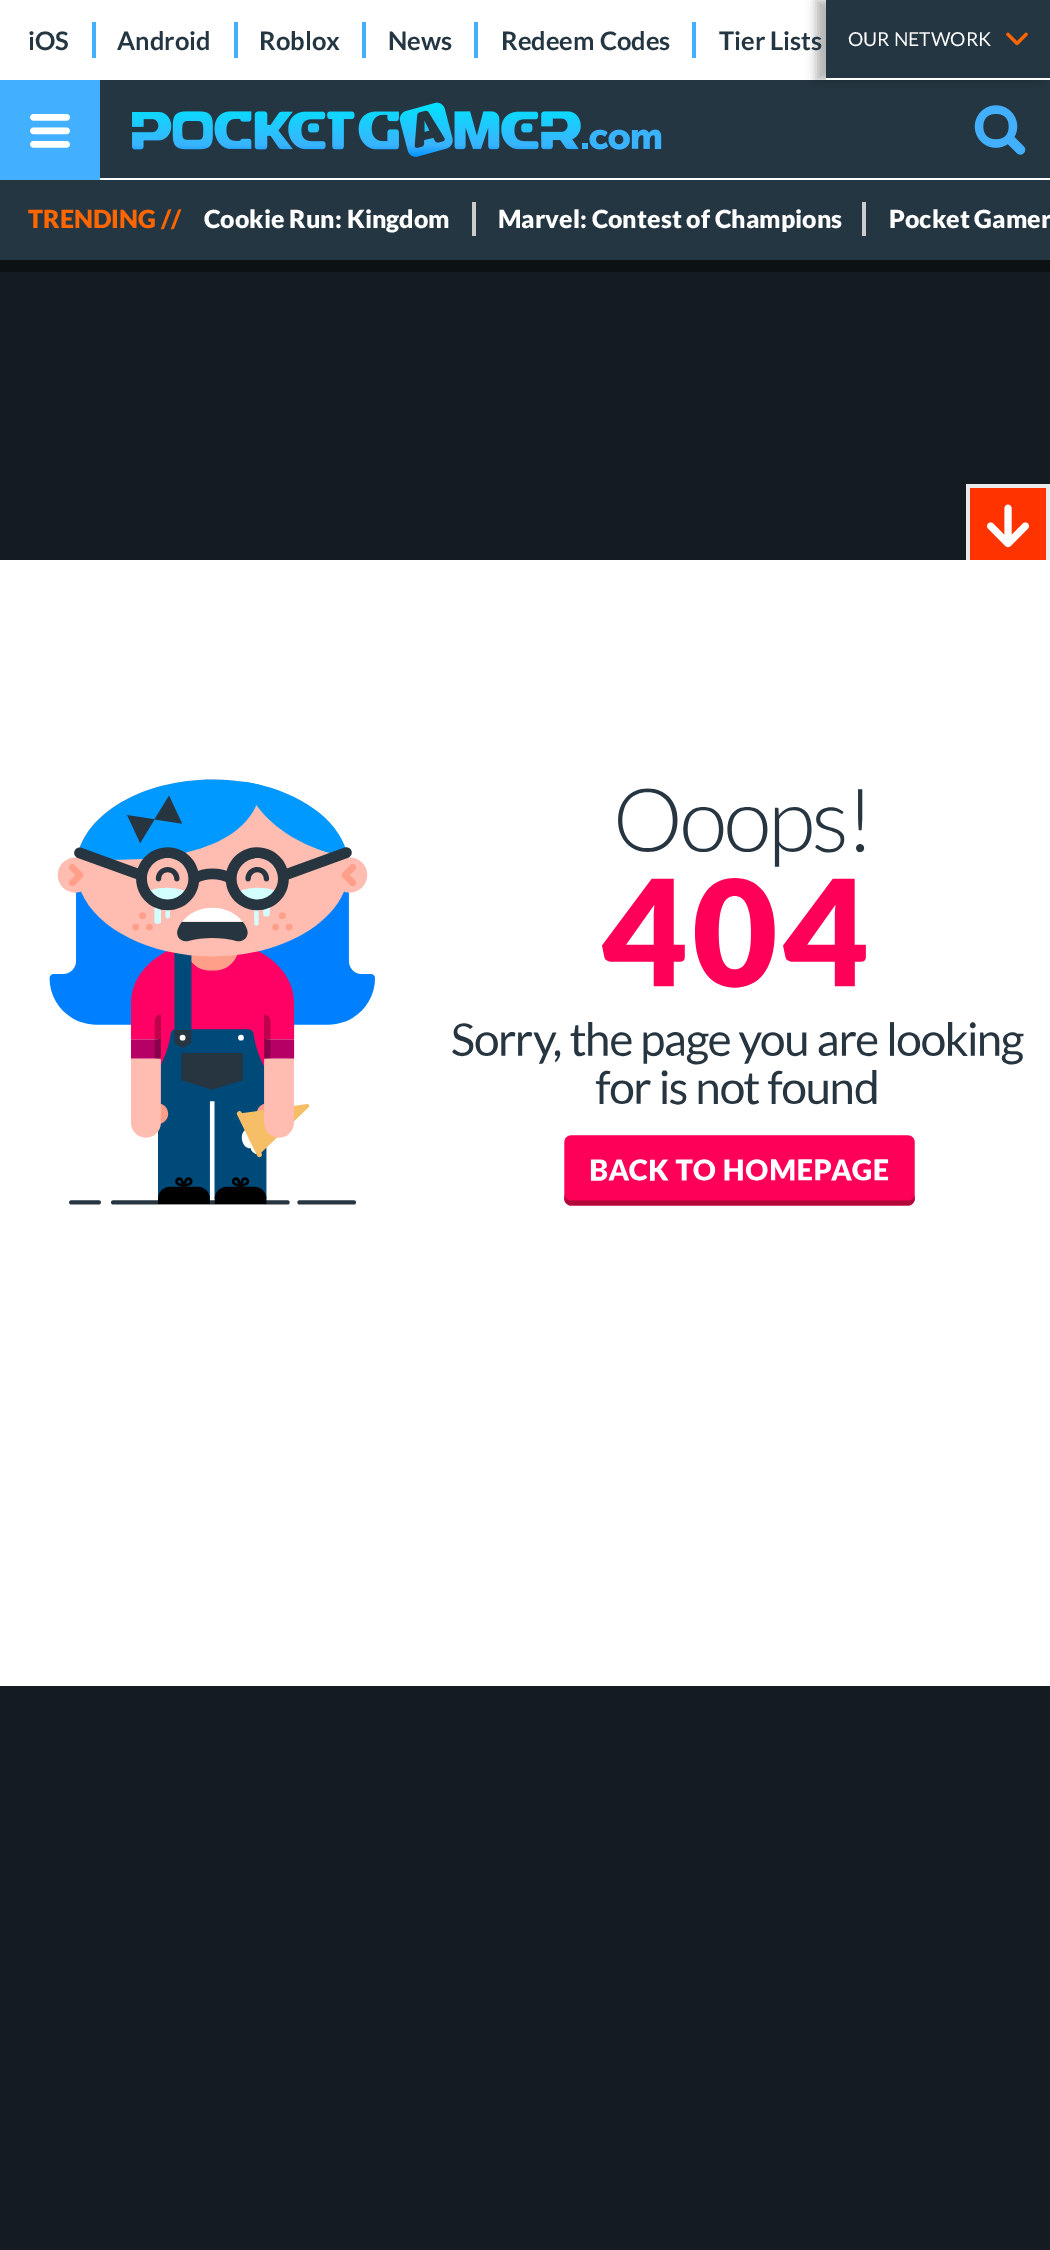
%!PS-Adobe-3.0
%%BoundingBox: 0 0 1050 2250
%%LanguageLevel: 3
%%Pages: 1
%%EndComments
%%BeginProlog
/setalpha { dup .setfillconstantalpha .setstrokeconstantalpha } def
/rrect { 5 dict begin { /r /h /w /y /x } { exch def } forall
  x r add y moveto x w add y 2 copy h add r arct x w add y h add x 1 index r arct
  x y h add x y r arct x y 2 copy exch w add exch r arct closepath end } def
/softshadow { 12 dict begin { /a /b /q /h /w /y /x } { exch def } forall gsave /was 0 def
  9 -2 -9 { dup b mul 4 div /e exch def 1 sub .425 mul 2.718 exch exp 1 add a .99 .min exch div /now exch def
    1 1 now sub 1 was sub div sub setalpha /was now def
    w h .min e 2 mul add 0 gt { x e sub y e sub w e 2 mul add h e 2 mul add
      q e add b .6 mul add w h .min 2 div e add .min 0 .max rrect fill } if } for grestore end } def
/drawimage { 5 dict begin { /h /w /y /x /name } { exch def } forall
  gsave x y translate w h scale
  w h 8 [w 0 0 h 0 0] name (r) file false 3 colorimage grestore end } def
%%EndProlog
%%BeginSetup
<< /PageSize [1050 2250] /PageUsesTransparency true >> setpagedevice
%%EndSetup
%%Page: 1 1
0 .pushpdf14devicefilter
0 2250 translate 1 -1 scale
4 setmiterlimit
0.078 0.11 0.133 setrgbcolor
0 0 1050 2250 rectfill
0.047 0.067 0.078 setrgbcolor
0 260 1050 12 rectfill
1 setgray
0 0 1050 180 rectfill
0.259 0.69 1 setrgbcolor
92 22 4 36 rectfill
234 22 4 36 rectfill
362 22 4 36 rectfill
474 22 4 36 rectfill
692 22 4 36 rectfill
0.141 0.212 0.259 setrgbcolor
100 80 950 98 rectfill
0 setgray
816 0 224 80 0 5 0.3 softshadow
0.141 0.212 0.259 setrgbcolor
826 0 224 78 rectfill
1 setgray
826 78 224 2 rectfill
(images/1.raw) 1006 32 22 14 drawimage
0.259 0.69 1 setrgbcolor
0 80 100 100 rectfill
(images/2.raw) 30 114 40 34 drawimage
(images/3.raw) 132 102 530 55 drawimage
(images/4.raw) 974 105 52 50 drawimage
0.141 0.212 0.259 setrgbcolor
0 180 1050 80 rectfill
0.8 setgray
472 202 4 34 rectfill
862 202 4 34 rectfill
0.918 setgray
966 484 84 76 rectfill
1 0.2 0 setrgbcolor
970 488 76 72 rectfill
(images/5.raw) 987 504 42 44 drawimage
1 setgray
0 560 1050 1126 rectfill
(images/6.raw) 49 779 975 427 drawimage
/Lato-Bold [25.5 0 0 -25.5 0 0] selectfont
0.141 0.212 0.259 setrgbcolor
28 50 moveto (iOS) show
117 50 moveto (Android) show
259 50 moveto (Roblox) show
388 50 moveto (News) show
501 50 moveto (Redeem Codes) show
719 50 moveto (Tier Lists) show
/Lato-Regular [19.25 0 0 -19.25 0 0] selectfont
1 setgray
848 46 moveto (OUR NETWORK) show
/Lato-Black [25 0 0 -25 0 0] selectfont
1 0.4 0 setrgbcolor
28 228 moveto (TRENDING //) show
1 setgray
204 228 moveto (Cookie Run: Kingdom) show
498 228 moveto (Marvel: Contest of Champions) show
889 228 moveto (Pocket Gamer) show
.poppdf14devicefilter showpage
%%EOF
